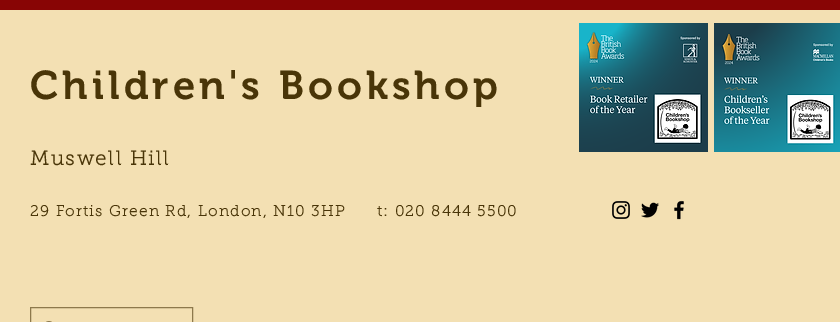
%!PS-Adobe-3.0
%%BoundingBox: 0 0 840 322
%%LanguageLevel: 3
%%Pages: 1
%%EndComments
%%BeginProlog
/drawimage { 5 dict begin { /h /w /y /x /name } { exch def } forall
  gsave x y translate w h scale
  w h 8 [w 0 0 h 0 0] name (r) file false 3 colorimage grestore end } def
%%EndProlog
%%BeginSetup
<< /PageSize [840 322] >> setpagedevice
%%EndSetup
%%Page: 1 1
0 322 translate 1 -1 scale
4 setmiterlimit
0.953 0.878 0.702 setrgbcolor
0 0 840 322 rectfill
0.533 0.02 0.02 setrgbcolor
0 0 840 10 rectfill
(images/1.raw) 579 23 129 129 drawimage
(images/2.raw) 714 23 126 129 drawimage
(images/3.raw) 612 201 18 18 drawimage
(images/4.raw) 641 202 18 16 drawimage
(images/5.raw) 674 200 10 20 drawimage
0.553 0.475 0.298 setrgbcolor
30.5 307.5 162 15 rectstroke
(images/6.raw) 46 321 6 1 drawimage
/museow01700-SemiBold [40 0 0 -40 0 0] selectfont
0.286 0.208 0.031 setrgbcolor
30 99 moveto 4 0 (Children's Bookshop) ashow
/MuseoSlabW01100-Bold [20 0 0 -20 0 0] selectfont
30 165 moveto 2 0 (Muswell Hill) ashow
/MuseoSlabW01100-Bold [15 0 0 -15 0 0] selectfont
30 216 moveto 1.5 0 (29 Fortis Green Rd, London, N10 3HP      t: 020 8444 5500) ashow
showpage
%%EOF
